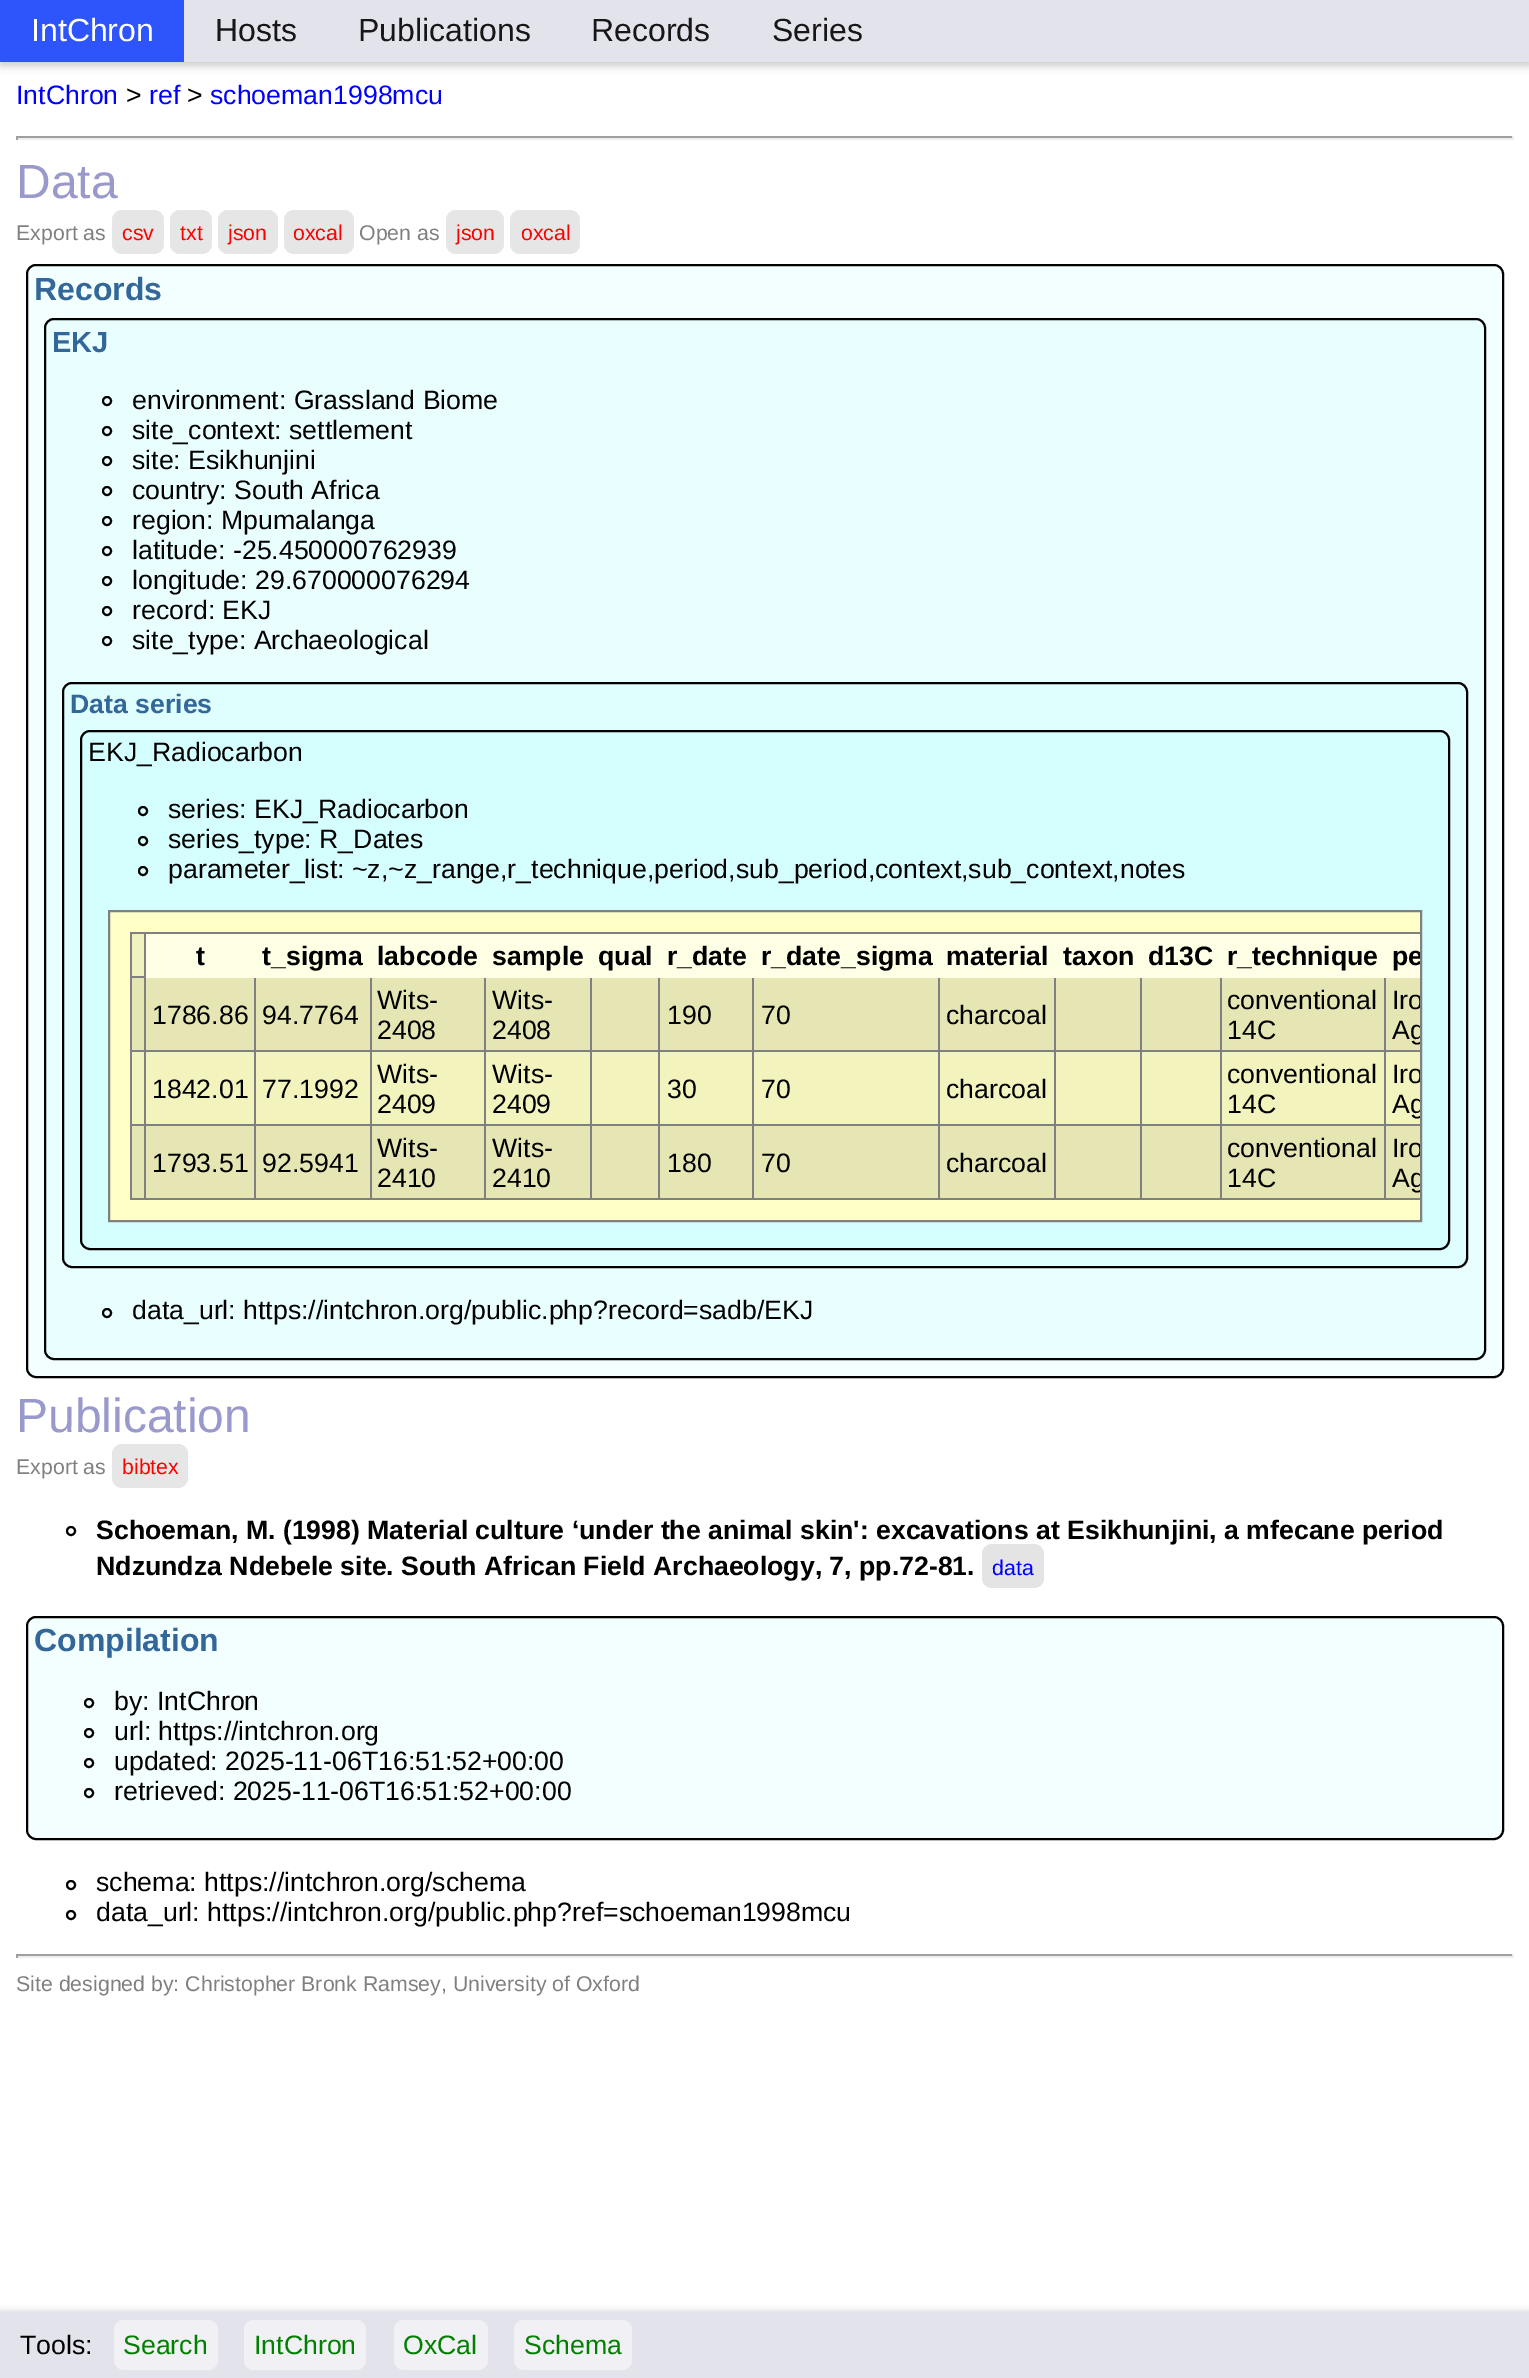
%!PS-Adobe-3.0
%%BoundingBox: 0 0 1529 2378
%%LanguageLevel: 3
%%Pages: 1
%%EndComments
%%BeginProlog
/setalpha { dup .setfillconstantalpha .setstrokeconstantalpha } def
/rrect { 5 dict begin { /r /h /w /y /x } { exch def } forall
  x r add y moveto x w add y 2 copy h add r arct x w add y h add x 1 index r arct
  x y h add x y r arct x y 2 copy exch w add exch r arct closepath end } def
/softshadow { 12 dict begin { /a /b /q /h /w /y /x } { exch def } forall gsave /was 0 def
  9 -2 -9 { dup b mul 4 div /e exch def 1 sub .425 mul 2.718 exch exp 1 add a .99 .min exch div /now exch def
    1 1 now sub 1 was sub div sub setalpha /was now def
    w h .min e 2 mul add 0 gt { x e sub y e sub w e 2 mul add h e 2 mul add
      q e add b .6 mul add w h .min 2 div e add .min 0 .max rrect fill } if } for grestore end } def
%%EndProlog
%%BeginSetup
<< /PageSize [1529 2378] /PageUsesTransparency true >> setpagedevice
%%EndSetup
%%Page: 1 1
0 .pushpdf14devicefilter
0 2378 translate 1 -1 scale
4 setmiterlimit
1 setgray
0 0 1529 2378 rectfill
0 setgray
0 4 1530 62 0 4 0.2 softshadow
0.89 0.89 0.922 setrgbcolor
184 0 1345 62 rectfill
0.176 0.333 0.984 setrgbcolor
0 0 184 62 rectfill
0.624 setgray
16 136 1498 2 rectfill
0.933 setgray
1512 136 2 4 rectfill
16 138 1498 2 rectfill
0.624 setgray
16 136 2 4 rectfill
0.902 setgray
112 210 52 44 10 rrect fill
170 210 42 44 10 rrect fill
218 210 60 44 10 rrect fill
284 210 70 44 10 rrect fill
446 210 58 44 10 rrect fill
510 210 70 44 10 rrect fill
0.953 1 1 setrgbcolor
27 265 1476 1112 9 rrect gsave fill grestore
0 setgray
2 setlinewidth
stroke
0.914 1 1 setrgbcolor
45 319 1440 1040 9 rrect gsave fill grestore
0 setgray
stroke
newpath 107 401 4 0 360 arc closepath stroke
newpath 107 431 4 0 360 arc closepath stroke
newpath 107 461 4 0 360 arc closepath stroke
newpath 107 491 4 0 360 arc closepath stroke
newpath 107 521 4 0 360 arc closepath stroke
newpath 107 551 4 0 360 arc closepath stroke
newpath 107 581 4 0 360 arc closepath stroke
newpath 107 611 4 0 360 arc closepath stroke
newpath 107 641 4 0 360 arc closepath stroke
0.875 1 1 setrgbcolor
63 683 1404 584 9 rrect gsave fill grestore
0 setgray
stroke
0.835 1 1 setrgbcolor
81 731 1368 518 9 rrect gsave fill grestore
0 setgray
stroke
newpath 143 811 4 0 360 arc closepath stroke
newpath 143 841 4 0 360 arc closepath stroke
newpath 143 871 4 0 360 arc closepath stroke
1 1 0.784 setrgbcolor
newpath 109 911 moveto 1421 911 lineto 1421 1221 lineto 109 1221 lineto closepath gsave fill grestore
0.502 setgray
stroke
130 932 1290 2 rectfill
130 1198 1290 2 rectfill
130 932 2 268 rectfill
0.949 0.949 0.745 setrgbcolor
132 934 12 42 rectfill
0.902 0.902 0.706 setrgbcolor
132 978 1288 72 rectfill
0.502 setgray
1384 1050 36 2 rectfill
0.953 0.953 0.745 setrgbcolor
132 1052 1288 72 rectfill
0.502 setgray
1384 1124 36 2 rectfill
0.902 0.902 0.706 setrgbcolor
132 1126 1288 72 rectfill
0.502 setgray
1384 1124 2 76 rectfill
1220 1124 166 2 rectfill
1384 1050 2 76 rectfill
1220 1050 166 2 rectfill
1220 1124 2 76 rectfill
1140 1124 82 2 rectfill
1220 1050 2 76 rectfill
1140 1050 82 2 rectfill
1140 1124 2 76 rectfill
1054 1124 88 2 rectfill
1140 1050 2 76 rectfill
1054 1050 88 2 rectfill
1054 1124 2 76 rectfill
938 1124 118 2 rectfill
1054 1050 2 76 rectfill
938 1050 118 2 rectfill
938 1124 2 76 rectfill
752 1124 188 2 rectfill
938 1050 2 76 rectfill
752 1050 188 2 rectfill
752 1124 2 76 rectfill
658 1124 96 2 rectfill
752 1050 2 76 rectfill
658 1050 96 2 rectfill
658 1124 2 76 rectfill
590 1124 70 2 rectfill
658 1050 2 76 rectfill
590 1050 70 2 rectfill
590 1124 2 76 rectfill
484 1124 108 2 rectfill
590 1050 2 76 rectfill
484 1050 108 2 rectfill
484 1124 2 76 rectfill
370 1124 116 2 rectfill
484 1050 2 76 rectfill
370 1050 116 2 rectfill
370 1124 2 76 rectfill
254 1124 118 2 rectfill
370 1050 2 76 rectfill
254 1050 118 2 rectfill
254 1124 2 76 rectfill
144 1124 112 2 rectfill
254 1050 2 76 rectfill
144 1050 112 2 rectfill
144 1124 2 76 rectfill
130 1124 16 2 rectfill
144 1050 2 76 rectfill
130 1050 16 2 rectfill
144 976 2 76 rectfill
130 976 16 2 rectfill
144 932 2 46 rectfill
254 976 2 76 rectfill
370 976 2 76 rectfill
484 976 2 76 rectfill
590 976 2 76 rectfill
658 976 2 76 rectfill
752 976 2 76 rectfill
938 976 2 76 rectfill
1054 976 2 76 rectfill
1140 976 2 76 rectfill
1220 976 2 76 rectfill
1384 976 2 76 rectfill
1 1 0.902 setrgbcolor
146 934 1274 44 rectfill
0 setgray
newpath 107 1313 4 0 360 arc closepath stroke
0.902 setgray
112 1444 76 44 10 rrect fill
0 setgray
newpath 71 1531 4 0 360 arc closepath stroke
0.953 1 1 setrgbcolor
27 1617 1476 222 9 rrect gsave fill grestore
0 setgray
stroke
newpath 89 1703 4 0 360 arc closepath stroke
newpath 89 1733 4 0 360 arc closepath stroke
newpath 89 1763 4 0 360 arc closepath stroke
newpath 89 1793 4 0 360 arc closepath stroke
newpath 71 1885 4 0 360 arc closepath stroke
newpath 71 1915 4 0 360 arc closepath stroke
0.624 setgray
16 1954 1498 2 rectfill
0.933 setgray
1512 1954 2 4 rectfill
16 1956 1498 2 rectfill
0.624 setgray
16 1954 2 4 rectfill
0 setgray
-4 2312 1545 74 0 4 0.2 softshadow
0.89 0.89 0.922 setrgbcolor
0 2312 1529 66 rectfill
0.945 0.945 0.961 setrgbcolor
114 2320 104 50 10 rrect fill
244 2320 122 50 10 rrect fill
394 2320 94 50 10 rrect fill
514 2320 118 50 10 rrect fill
/LiberationSans-Regular [32 0 0 -32 0 0] selectfont
1 setgray
31 41 moveto (IntChron) show
0.09 0.09 0.094 setrgbcolor
215 41 moveto (Hosts) show
358 41 moveto (Publications) show
591 41 moveto (Records) show
772 41 moveto (Series) show
/LiberationSans-Regular [26.67 0 0 -26.67 0 0] selectfont
0 0 1 setrgbcolor
16 104 moveto (IntChron) show
0 setgray
126 104 moveto (>) show
0 0 1 setrgbcolor
149 104 moveto (ref) show
0 setgray
187 104 moveto (>) show
0 0 1 setrgbcolor
210 104 moveto (schoeman1998mcu) show
/LiberationSans-Regular [48 0 0 -48 0 0] selectfont
0.6 0.6 0.8 setrgbcolor
16 198 moveto (Data) show
/LiberationSans-Regular [21.3 0 0 -21.3 0 0] selectfont
0.502 setgray
16 240 moveto (Export as) show
1 0 0 setrgbcolor
122 240 moveto (csv) show
180 240 moveto (txt) show
228 240 moveto (json) show
293 240 moveto (oxcal) show
0.502 setgray
359 240 moveto (Open as) show
1 0 0 setrgbcolor
456 240 moveto (json) show
521 240 moveto (oxcal) show
/LiberationSans-Bold [32 0 0 -32 0 0] selectfont
0.2 0.4 0.6 setrgbcolor
34 300 moveto (Records) show
/LiberationSans-Bold [29 0 0 -29 0 0] selectfont
52 352 moveto (EKJ) show
/LiberationSans-Regular [26.67 0 0 -26.67 0 0] selectfont
0 setgray
132 409 moveto (environment: Grassland Biome) show
132 439 moveto (site_context: settlement) show
132 469 moveto (site: Esikhunjini) show
132 499 moveto (country: South Africa) show
132 529 moveto (region: Mpumalanga) show
132 559 moveto (latitude: -25.450000762939) show
132 589 moveto (longitude: 29.670000076294) show
132 619 moveto (record: EKJ) show
132 649 moveto (site_type: Archaeological) show
/LiberationSans-Bold [26.67 0 0 -26.67 0 0] selectfont
0.2 0.4 0.6 setrgbcolor
70 713 moveto (Data series) show
/LiberationSans-Regular [26.67 0 0 -26.67 0 0] selectfont
0 setgray
88 761 moveto (EKJ_Radiocarbon) show
168 818 moveto (series: EKJ_Radiocarbon) show
168 848 moveto (series_type: R_Dates) show
168 878 moveto (parameter_list: ~z,~z_range,r_technique,period,sub_period,context,sub_context,notes) show
/LiberationSans-Bold [26.67 0 0 -26.67 0 0] selectfont
196 965 moveto (t) show
262 965 moveto (t_sigma) show
377 965 moveto (labcode) show
492 965 moveto (sample) show
598 965 moveto (qual) show
667 965 moveto (r_date) show
761 965 moveto (r_date_sigma) show
946 965 moveto (material) show
1063 965 moveto (taxon) show
1148 965 moveto (d13C) show
1227 965 moveto (r_technique) show
gsave
110 912 1310 308 rectclip
1392 965 moveto (pe) show
grestore
/LiberationSans-Regular [26.67 0 0 -26.67 0 0] selectfont
152 1024 moveto (1786.86) show
262 1024 moveto (94.7764) show
377 1009 moveto (Wits-) show
377 1039 moveto (2408) show
492 1009 moveto (Wits-) show
492 1039 moveto (2408) show
667 1024 moveto (190) show
761 1024 moveto (70) show
946 1024 moveto (charcoal) show
1227 1009 moveto (conventional) show
1227 1039 moveto (14C) show
gsave
110 912 1310 308 rectclip
1392 1009 moveto (Iro) show
1392 1039 moveto (Ag) show
grestore
152 1098 moveto (1842.01) show
262 1098 moveto (77.1992) show
377 1083 moveto (Wits-) show
377 1113 moveto (2409) show
492 1083 moveto (Wits-) show
492 1113 moveto (2409) show
667 1098 moveto (30) show
761 1098 moveto (70) show
946 1098 moveto (charcoal) show
1227 1083 moveto (conventional) show
1227 1113 moveto (14C) show
gsave
110 912 1310 308 rectclip
1392 1083 moveto (Iro) show
1392 1113 moveto (Ag) show
grestore
152 1172 moveto (1793.51) show
262 1172 moveto (92.5941) show
377 1157 moveto (Wits-) show
377 1187 moveto (2410) show
492 1157 moveto (Wits-) show
492 1187 moveto (2410) show
667 1172 moveto (180) show
761 1172 moveto (70) show
946 1172 moveto (charcoal) show
1227 1157 moveto (conventional) show
1227 1187 moveto (14C) show
gsave
110 912 1310 308 rectclip
1392 1157 moveto (Iro) show
1392 1187 moveto (Ag) show
grestore
132 1319 moveto (data_url: https://intchron.org/public.php?record=sadb/EKJ) show
/LiberationSans-Regular [48 0 0 -48 0 0] selectfont
0.6 0.6 0.8 setrgbcolor
16 1432 moveto (Publication) show
/LiberationSans-Regular [21.3 0 0 -21.3 0 0] selectfont
0.502 setgray
16 1474 moveto (Export as) show
1 0 0 setrgbcolor
122 1474 moveto (bibtex) show
/LiberationSans-Bold [26.67 0 0 -26.67 0 0] selectfont
0 setgray
96 1539 moveto (Schoeman, M. \(1998\) Material culture ‘under the animal skin': excavations at Esikhunjini, a mfecane period) show
96 1575 moveto (Ndzundza Ndebele site. South African Field Archaeology, 7, pp.72-81.) show
0.894 setgray
982 1544 62 44 10 rrect fill
/LiberationSans-Regular [21.3 0 0 -21.3 0 0] selectfont
0 0 1 setrgbcolor
992 1575 moveto (data) show
/LiberationSans-Bold [32 0 0 -32 0 0] selectfont
0.2 0.4 0.6 setrgbcolor
34 1651 moveto (Compilation) show
/LiberationSans-Regular [26.67 0 0 -26.67 0 0] selectfont
0 setgray
114 1710 moveto (by: IntChron) show
114 1740 moveto (url: https://intchron.org) show
114 1770 moveto (updated: 2025-11-06T16:51:52+00:00) show
114 1800 moveto (retrieved: 2025-11-06T16:51:52+00:00) show
96 1891 moveto (schema: https://intchron.org/schema) show
96 1921 moveto (data_url: https://intchron.org/public.php?ref=schoeman1998mcu) show
/LiberationSans-Regular [21.3 0 0 -21.3 0 0] selectfont
0.502 setgray
16 1991 moveto (Site designed by: Christopher Bronk Ramsey, University of Oxford) show
/LiberationSans-Regular [26.67 0 0 -26.67 0 0] selectfont
0 setgray
20 2354 moveto (Tools:) show
0 0.502 0 setrgbcolor
123 2354 moveto (Search) show
254 2354 moveto (IntChron) show
403 2354 moveto (OxCal) show
524 2354 moveto (Schema) show
.poppdf14devicefilter showpage
%%EOF
